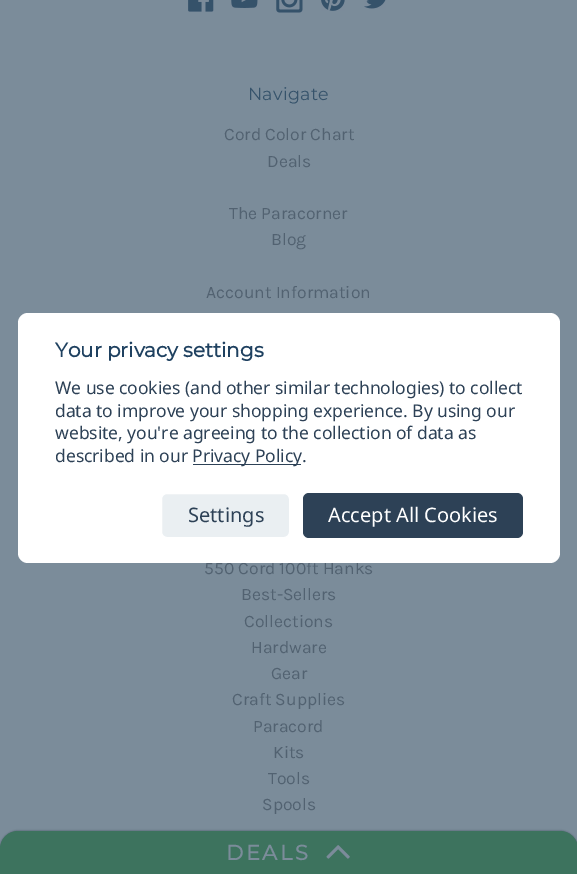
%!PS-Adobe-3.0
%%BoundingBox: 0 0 577 874
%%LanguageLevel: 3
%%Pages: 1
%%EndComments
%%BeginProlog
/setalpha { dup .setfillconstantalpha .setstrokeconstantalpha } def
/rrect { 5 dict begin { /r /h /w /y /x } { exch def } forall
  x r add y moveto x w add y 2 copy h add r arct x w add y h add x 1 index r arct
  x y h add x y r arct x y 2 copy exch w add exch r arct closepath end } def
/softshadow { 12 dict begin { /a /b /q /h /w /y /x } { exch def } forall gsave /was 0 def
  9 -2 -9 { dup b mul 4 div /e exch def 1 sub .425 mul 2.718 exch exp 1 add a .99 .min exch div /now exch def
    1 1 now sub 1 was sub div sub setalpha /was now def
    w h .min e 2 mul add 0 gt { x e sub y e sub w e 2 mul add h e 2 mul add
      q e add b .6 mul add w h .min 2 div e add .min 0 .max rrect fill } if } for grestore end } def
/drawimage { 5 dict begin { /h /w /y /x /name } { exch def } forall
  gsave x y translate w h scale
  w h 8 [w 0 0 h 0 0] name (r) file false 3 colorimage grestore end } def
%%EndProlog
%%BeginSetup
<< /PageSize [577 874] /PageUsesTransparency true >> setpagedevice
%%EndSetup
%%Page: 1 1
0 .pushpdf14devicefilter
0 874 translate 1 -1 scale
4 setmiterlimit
0.482 0.549 0.604 setrgbcolor
0 0 577 874 rectfill
(images/1.raw) 188 0 26 12 drawimage
(images/2.raw) 231 0 27 8 drawimage
(images/3.raw) 276 0 27 13 drawimage
(images/4.raw) 321 0 24 11 drawimage
(images/5.raw) 364 0 22 9 drawimage
0.184 0.247 0.306 setrgbcolor
0 831 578 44 18 1 0.75 softshadow
0.239 0.451 0.369 setrgbcolor
newpath 18 831 moveto 560 831 lineto 570 831 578 839 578 849 curveto 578 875 lineto 0 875 lineto 0 849 lineto 0 839 8 831 18 831 curveto closepath fill
(images/6.raw) 326 845 24 14 drawimage
/Montserrat-Thin [17.5 0 0 -17.5 0 0] selectfont
0.212 0.325 0.42 setrgbcolor
248 100 moveto 0.25 0 (Navigate) ashow
/Karla-Regular [17.5 0 0 -17.5 0 0] selectfont
0.322 0.384 0.443 setrgbcolor
224 140 moveto (Cord Color Chart) show
267 167 moveto (Deals) show
229 219 moveto (The Paracorner) show
271 245 moveto (Blog) show
206 298 moveto (Account Information) show
204 574 moveto (550 Cord 100ft Hanks) show
241 600 moveto (Best-Sellers) show
244 627 moveto (Collections) show
251 653 moveto (Hardware) show
271 679 moveto (Gear) show
232 705 moveto (Craft Supplies) show
253 732 moveto (Paracord) show
273 758 moveto (Kits) show
268 784 moveto (Tools) show
262 810 moveto (Spools) show
1 setgray
18 313 542 250 10 rrect fill
/Montserrat-Bold [20 0 0 -20 0 0] selectfont
0.122 0.255 0.376 setrgbcolor
55 357 moveto -0.05 0 (Your privacy settings) ashow
/NotoSans-Regular [17.5 0 0 -17.5 0 0] selectfont
0.176 0.255 0.337 setrgbcolor
55 394 moveto -0.05 0 (We use cookies \(and other similar technologies\) to collect) ashow
55 417 moveto -0.05 0 (data to improve your shopping experience. By using our) ashow
55 439 moveto -0.05 0 (website, you're agreeing to the collection of data as) ashow
55 462 moveto -0.05 0 (described in our) ashow
193 464 108 1 rectfill
192 462 moveto -0.05 0 (Privacy Policy.) ashow
0.918 0.937 0.949 setrgbcolor
161.5 493.5 128 44 5.5 rrect gsave fill grestore
1 setgray
stroke
/NotoSans-Regular [20 0 0 -20 0 0] selectfont
0.176 0.255 0.337 setrgbcolor
188 522 moveto (Settings) show
303 493 220 45 6 rrect fill
1 setgray
328 522 moveto (Accept All Cookies) show
/Montserrat-Bold [21 0 0 -21 0 0] selectfont
0.482 0.549 0.604 setrgbcolor
226 860 moveto 2.5 0 (DEALS) ashow
.poppdf14devicefilter showpage
%%EOF
